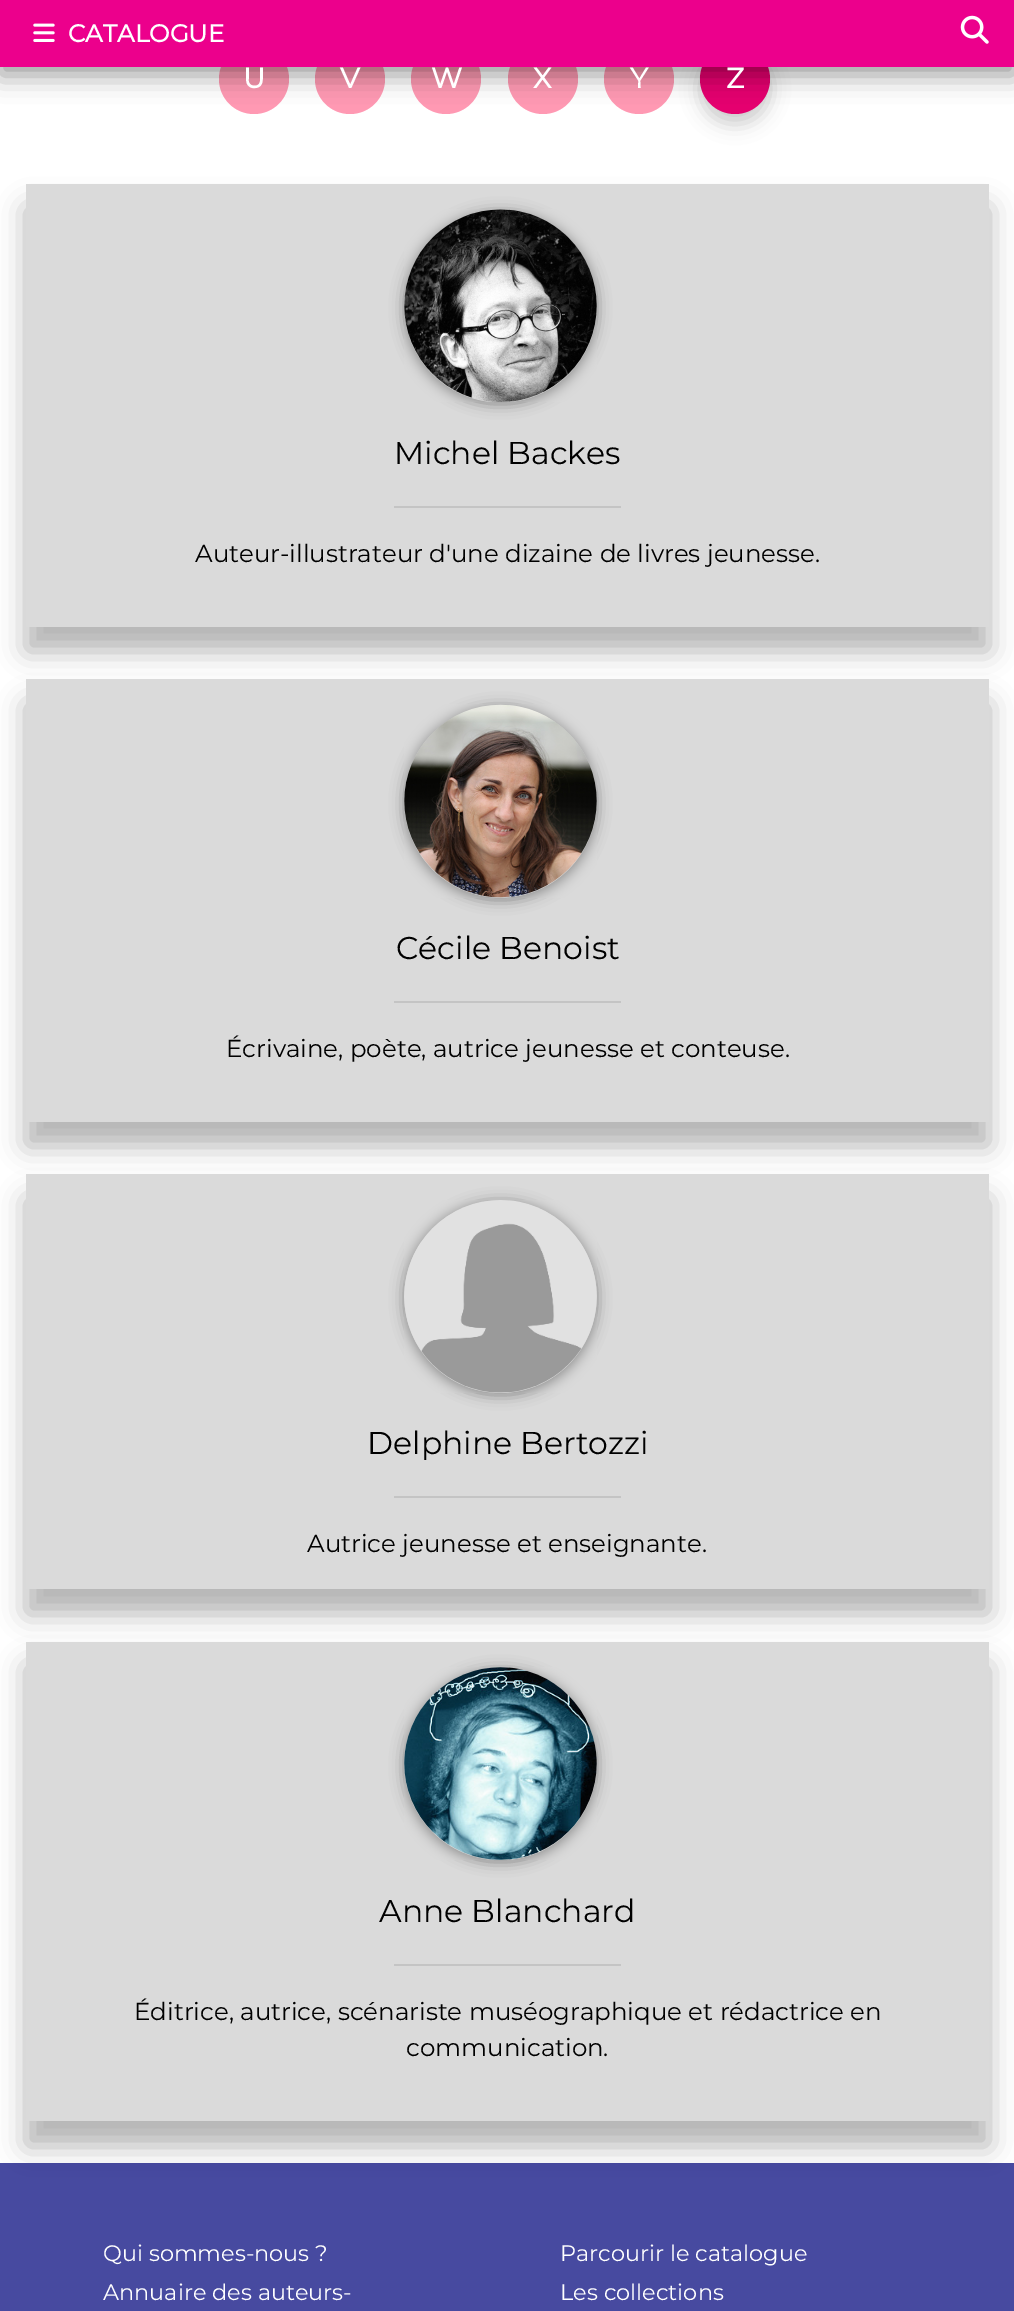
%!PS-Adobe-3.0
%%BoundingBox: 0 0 1014 2311
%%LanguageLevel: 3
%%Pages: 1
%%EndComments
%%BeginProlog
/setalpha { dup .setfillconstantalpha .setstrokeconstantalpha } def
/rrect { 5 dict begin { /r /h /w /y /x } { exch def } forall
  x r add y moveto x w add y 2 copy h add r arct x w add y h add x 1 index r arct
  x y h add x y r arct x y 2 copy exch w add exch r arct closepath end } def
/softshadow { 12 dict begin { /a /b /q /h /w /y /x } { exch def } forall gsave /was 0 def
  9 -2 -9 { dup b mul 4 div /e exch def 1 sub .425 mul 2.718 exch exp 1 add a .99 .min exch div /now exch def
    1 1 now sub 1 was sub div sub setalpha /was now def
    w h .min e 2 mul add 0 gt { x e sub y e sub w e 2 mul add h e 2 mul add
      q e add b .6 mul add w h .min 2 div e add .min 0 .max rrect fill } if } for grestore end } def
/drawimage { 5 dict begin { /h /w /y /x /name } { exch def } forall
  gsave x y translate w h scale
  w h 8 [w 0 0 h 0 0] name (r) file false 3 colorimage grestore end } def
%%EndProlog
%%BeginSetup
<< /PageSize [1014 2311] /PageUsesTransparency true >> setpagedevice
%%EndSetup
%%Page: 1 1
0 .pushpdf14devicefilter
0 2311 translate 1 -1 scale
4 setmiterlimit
1 setgray
0 0 1014 2311 rectfill
1 0.6 0.702 setrgbcolor
newpath 254 79 35 0 360 arc closepath fill
newpath 350 79 35 0 360 arc closepath fill
newpath 446 79 35 0 360 arc closepath fill
newpath 543 79 35 0 360 arc closepath fill
newpath 639 79 35 0 360 arc closepath fill
0 setgray
700 54 70 70 35 9.5 0.2 softshadow
0.898 0 0.435 setrgbcolor
newpath 735 79 35 0 360 arc closepath fill
0 setgray
0 9 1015 66 0 13 0.4 softshadow
0.925 0 0.549 setrgbcolor
0 0 1014 67 rectfill
(images/1.raw) 33 23 22 19 drawimage
(images/2.raw) 960 15 29 29 drawimage
0 setgray
26 208 963 443 0 14 0.3 softshadow
0.855 setgray
26 184 963 443 rectfill
0 setgray
404 212 193 192 96 7 0.4 softshadow
(images/3.raw) 404 209 193 193 drawimage
0.769 setgray
394 506 227 2 rectfill
0 setgray
26 704 963 442 0 14 0.3 softshadow
0.855 setgray
26 679 963 443 rectfill
0 setgray
404 707 193 193 96.5 7 0.4 softshadow
(images/4.raw) 404 704 193 194 drawimage
0.769 setgray
394 1001 227 2 rectfill
0 setgray
26 1199 963 415 0 14 0.3 softshadow
0.855 setgray
26 1174 963 415 rectfill
0 setgray
404 1202 193 193 96.5 7 0.4 softshadow
(images/5.raw) 404 1200 193 193 drawimage
0.769 setgray
394 1496 227 2 rectfill
0.278 0.29 0.627 setrgbcolor
0 2163 1014 148 rectfill
0 setgray
26 1666 963 480 0 14 0.3 softshadow
0.855 setgray
26 1642 963 479 rectfill
0 setgray
404 1670 193 192 96 7 0.4 softshadow
(images/6.raw) 404 1667 193 193 drawimage
0.769 setgray
394 1964 227 2 rectfill
/Montserrat-Bold [24.5 0 0 -24.5 0 0] selectfont
1 setgray
68 42 moveto (CATALOGUE) show
/Montserrat-Bold [28 0 0 -28 0 0] selectfont
243 88 moveto (U) show
340 88 moveto (V) show
431 88 moveto (W) show
533 88 moveto (X) show
630 88 moveto (Y) show
726 88 moveto (Z) show
/Montserrat-Thin [31.5 0 0 -31.5 0 0] selectfont
0 setgray
394 464 moveto (Michel Backes) show
/Montserrat-Thin [24.5 0 0 -24.5 0 0] selectfont
195 562 moveto (Auteur-illustrateur d'une dizaine de livres jeunesse.) show
/Montserrat-Thin [31.5 0 0 -31.5 0 0] selectfont
396 959 moveto (Cécile Benoist) show
/Montserrat-Thin [24.5 0 0 -24.5 0 0] selectfont
226 1057 moveto (Écrivaine, poète, autrice jeunesse et conteuse.) show
/Montserrat-Thin [31.5 0 0 -31.5 0 0] selectfont
367 1454 moveto (Delphine Bertozzi) show
/Montserrat-Thin [24.5 0 0 -24.5 0 0] selectfont
307 1552 moveto (Autrice jeunesse et enseignante.) show
/Montserrat-Thin [31.5 0 0 -31.5 0 0] selectfont
379 1922 moveto (Anne Blanchard) show
/Montserrat-Thin [24.5 0 0 -24.5 0 0] selectfont
134 2020 moveto (Éditrice, autrice, scénariste muséographique et rédactrice en) show
406 2056 moveto (communication.) show
/Montserrat-Thin [22.4 0 0 -22.4 0 0] selectfont
1 setgray
103 2261 moveto (Qui sommes-nous ?) show
103 2300 moveto (Annuaire des auteurs-) show
560 2261 moveto (Parcourir le catalogue) show
560 2300 moveto (Les collections) show
.poppdf14devicefilter showpage
%%EOF
